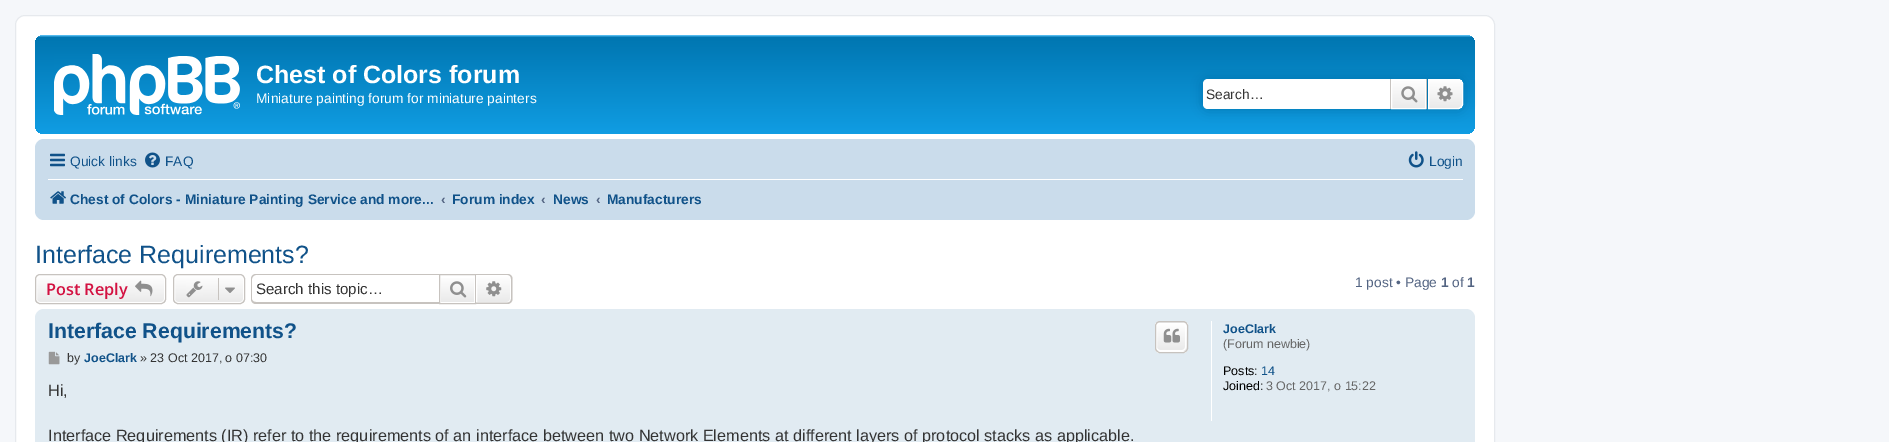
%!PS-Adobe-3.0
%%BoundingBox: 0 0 1889 442
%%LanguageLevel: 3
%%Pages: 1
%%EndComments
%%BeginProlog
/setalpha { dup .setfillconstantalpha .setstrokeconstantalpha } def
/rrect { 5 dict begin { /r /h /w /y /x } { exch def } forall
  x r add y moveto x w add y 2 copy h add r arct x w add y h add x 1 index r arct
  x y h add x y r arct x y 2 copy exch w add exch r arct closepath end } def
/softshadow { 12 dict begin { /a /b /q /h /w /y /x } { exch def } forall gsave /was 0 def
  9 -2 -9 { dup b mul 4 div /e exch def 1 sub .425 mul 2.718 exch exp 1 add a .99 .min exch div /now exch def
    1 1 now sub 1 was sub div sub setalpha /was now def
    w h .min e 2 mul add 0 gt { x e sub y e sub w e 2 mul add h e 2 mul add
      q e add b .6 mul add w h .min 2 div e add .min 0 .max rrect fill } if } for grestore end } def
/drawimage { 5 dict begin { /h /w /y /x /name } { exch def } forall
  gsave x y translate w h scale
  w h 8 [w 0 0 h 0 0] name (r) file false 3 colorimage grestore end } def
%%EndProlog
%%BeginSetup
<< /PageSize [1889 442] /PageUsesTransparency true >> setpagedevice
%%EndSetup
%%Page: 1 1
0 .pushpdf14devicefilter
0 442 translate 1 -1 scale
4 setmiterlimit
0.961 0.969 0.98 setrgbcolor
0 0 1889 442 rectfill
1 setgray
15.5 15.5 1479 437 9.5 rrect gsave fill grestore
0.902 0.914 0.929 setrgbcolor
stroke
gsave 35 35 1440 99 9 rrect clip newpath
<< /ShadingType 2 /ColorSpace /DeviceRGB /Coords [755 35 755 150] /Extend [true true] /Function << /FunctionType 3 /Domain [0 1] /Functions [<< /FunctionType 2 /Domain [0 1] /C0 [0.416 0.808 1] /C1 [0 0.463 0.694] /N 1 >> << /FunctionType 2 /Domain [0 1] /C0 [0 0.463 0.694] /C1 [0.071 0.639 0.922] /N 1 >>] /Bounds [0.02] /Encode [0 1 0 1] >> >> shfill grestore
(images/1.raw) 54 54 186 61 drawimage
0 0.459 0.69 setrgbcolor
1203 79 260 30 5 6 1 softshadow
1 setgray
newpath 1208 79 moveto 1390 79 lineto 1390 109 lineto 1208 109 lineto 1205 109 1203 107 1203 104 curveto 1203 84 lineto 1203 81 1205 79 1208 79 curveto closepath fill
gsave newpath 1392 80 moveto 1425 80 lineto 1425 108 lineto 1392 108 lineto closepath clip newpath
<< /ShadingType 2 /ColorSpace /DeviceRGB /Coords [1409 79 1409 109] /Extend [true true] /Function << /FunctionType 2 /Domain [0 1] /C0 [1 1 1] /C1 [0.914 0.914 0.914] /N 1 >> >> shfill grestore
1391.5 79.5 34 29 rectstroke
0.78 0.765 0.749 setrgbcolor
1426 79 1 30 rectfill
1390 79 1 30 rectfill
(images/2.raw) 1401 86 17 17 drawimage
gsave newpath 1428.5 79.5 moveto 1458 79.5 lineto 1460.5 79.5 1462.5 81.5 1462.5 84 curveto 1462.5 104 lineto 1462.5 106.5 1460.5 108.5 1458 108.5 curveto 1428.5 108.5 lineto closepath clip newpath
<< /ShadingType 2 /ColorSpace /DeviceRGB /Coords [1445 79 1445 109] /Extend [true true] /Function << /FunctionType 2 /Domain [0 1] /C0 [1 1 1] /C1 [0.914 0.914 0.914] /N 1 >> >> shfill grestore
1 setgray
newpath 1428.5 79.5 moveto 1458 79.5 lineto 1460.5 79.5 1462.5 81.5 1462.5 84 curveto 1462.5 104 lineto 1462.5 106.5 1460.5 108.5 1458 108.5 curveto 1428.5 108.5 lineto closepath stroke
(images/3.raw) 1437 86 16 16 drawimage
0.792 0.863 0.922 setrgbcolor
35 139 1440 81 9 rrect fill
(images/4.raw) 50 153 15 14 drawimage
(images/5.raw) 145 152 15 16 drawimage
(images/6.raw) 1408 151 16 17 drawimage
1 setgray
48 179 1415 1 rectfill
(images/7.raw) 50 191 16 13 drawimage
gsave
35 274 131 30 5 rrect clip newpath
gsave newpath 35 275 moveto 166 275 lineto 166 303 lineto 35 303 lineto closepath clip newpath
<< /ShadingType 2 /ColorSpace /DeviceRGB /Coords [101 275 101 303] /Extend [true true] /Function << /FunctionType 2 /Domain [0 1] /C0 [1 1 1] /C1 [0.914 0.914 0.914] /N 1 >> >> shfill grestore
grestore
36.5 275.5 128 27 3.5 rrect stroke
0.78 0.765 0.749 setrgbcolor
35.5 274.5 130 29 4.5 rrect stroke
(images/8.raw) 135 280 18 17 drawimage
gsave
173 274 72 30 5 rrect clip newpath
gsave newpath 173 275 moveto 245 275 lineto 245 303 lineto 173 303 lineto closepath clip newpath
<< /ShadingType 2 /ColorSpace /DeviceRGB /Coords [209 275 209 303] /Extend [true true] /Function << /FunctionType 2 /Domain [0 1] /C0 [1 1 1] /C1 [0.914 0.914 0.914] /N 1 >> >> shfill grestore
grestore
1 setgray
174.5 275.5 69 27 3.5 rrect stroke
0.78 0.765 0.749 setrgbcolor
173.5 274.5 71 29 4.5 rrect stroke
(images/9.raw) 186 281 17 17 drawimage
218 278 1 22 rectfill
(images/10.raw) 225 287 10 6 drawimage
newpath 256 274 moveto 439 274 lineto 439 304 lineto 256 304 lineto 253 304 251 302 251 299 curveto 251 279 lineto 251 276 253 274 256 274 curveto closepath 256 275 moveto 439 275 lineto 439 302 lineto 256 302 lineto 254 302 252 301 252 299 curveto 252 279 lineto 252 277 254 275 256 275 curveto closepath eofill
gsave newpath 441 278 moveto 474 278 lineto 474 302 lineto 441 302 lineto closepath clip newpath
<< /ShadingType 2 /ColorSpace /DeviceRGB /Coords [458 275 458 303] /Extend [true true] /Function << /FunctionType 2 /Domain [0 1] /C0 [1 1 1] /C1 [0.914 0.914 0.914] /N 1 >> >> shfill grestore
439.5 274.5 36 29 rectstroke
(images/11.raw) 450 281 17 17 drawimage
gsave newpath 476.5 275.5 moveto 507 275.5 lineto 509 275.5 510.5 277 510.5 279 curveto 510.5 299 lineto 510.5 301 509 302.5 507 302.5 curveto 476.5 302.5 lineto closepath clip newpath
<< /ShadingType 2 /ColorSpace /DeviceRGB /Coords [494 275 494 303] /Extend [true true] /Function << /FunctionType 2 /Domain [0 1] /C0 [1 1 1] /C1 [0.914 0.914 0.914] /N 1 >> >> shfill grestore
1 setgray
newpath 476.5 275.5 moveto 507 275.5 lineto 509 275.5 510.5 277 510.5 279 curveto 510.5 299 lineto 510.5 301 509 302.5 507 302.5 curveto 476.5 302.5 lineto closepath stroke
0.78 0.765 0.749 setrgbcolor
newpath 476 274 moveto 507.5 274 lineto 510.5 274 512.5 276 512.5 279 curveto 512.5 299 lineto 512.5 301.5 510.5 304 507.5 304 curveto 476 304 lineto closepath 476 275 moveto 507.5 275 lineto 509.5 275 511 276.5 511 279 curveto 511 299 lineto 511 301 509.5 302.5 507.5 302.5 curveto 476 302.5 lineto closepath eofill
(images/12.raw) 486 281 16 16 drawimage
0.882 0.922 0.949 setrgbcolor
35 309 1440 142 9 rrect fill
gsave
1155 321 33 32 5 rrect clip newpath
gsave newpath 1155 321 moveto 1188 321 lineto 1188 323 lineto 1155 323 lineto closepath clip newpath
<< /ShadingType 2 /ColorSpace /DeviceRGB /Coords [1171 294 1171 323] /Extend [true true] /Function << /FunctionType 2 /Domain [0 1] /C0 [1 1 1] /C1 [0.914 0.914 0.914] /N 1 >> >> shfill grestore
gsave newpath 1155 323 moveto 1188 323 lineto 1188 351 lineto 1155 351 lineto closepath clip newpath
<< /ShadingType 2 /ColorSpace /DeviceRGB /Coords [1171 323 1171 351] /Extend [true true] /Function << /FunctionType 2 /Domain [0 1] /C0 [1 1 1] /C1 [0.914 0.914 0.914] /N 1 >> >> shfill grestore
gsave newpath 1155 351 moveto 1188 351 lineto 1188 353 lineto 1155 353 lineto closepath clip newpath
<< /ShadingType 2 /ColorSpace /DeviceRGB /Coords [1171 351 1171 380] /Extend [true true] /Function << /FunctionType 2 /Domain [0 1] /C0 [1 1 1] /C1 [0.914 0.914 0.914] /N 1 >> >> shfill grestore
grestore
1 setgray
1156.5 323.5 29 27 3.5 rrect stroke
0.78 0.765 0.749 setrgbcolor
1155.5 321.5 32 31 4.5 rrect stroke
(images/13.raw) 1163 328 17 15 drawimage
(images/14.raw) 48 351 12 14 drawimage
1 setgray
1211 321 1 100 rectfill
/LiberationSans-Bold [25 0 0 -25 0 0] selectfont
256 83 moveto (Chest of Colors forum) show
/LiberationSans-Regular [13.75 0 0 -13.75 0 0] selectfont
256 103 moveto (Miniature painting forum for miniature painters) show
0.2 setgray
1206 99 moveto (Search…) show
0.063 0.322 0.537 setrgbcolor
70 166 moveto (Quick links) show
165 166 moveto (FAQ) show
1429 166 moveto (Login) show
/LiberationSans-Bold [13.75 0 0 -13.75 0 0] selectfont
70 204 moveto (Chest of Colors - Miniature Painting Service and more...) show
0.325 0.392 0.51 setrgbcolor
441 204 moveto (‹) show
0.063 0.322 0.537 setrgbcolor
452 204 moveto (Forum index) show
0.325 0.392 0.51 setrgbcolor
541 204 moveto (‹) show
0.063 0.322 0.537 setrgbcolor
553 204 moveto (News) show
0.325 0.392 0.51 setrgbcolor
596 204 moveto (‹) show
0.063 0.322 0.537 setrgbcolor
607 204 moveto (Manufacturers) show
/LiberationSans-Regular [25 0 0 -25 0 0] selectfont
35 263 moveto (Interface Requirements?) show
/OpenSans-SemiBold [16.25 0 0 -16.25 0 0] selectfont
0.827 0.067 0.255 setrgbcolor
46 295 moveto (Post Reply) show
/LiberationSans-Regular [15.1 0 0 -15.1 0 0] selectfont
0.2 setgray
256 294 moveto (Search this topic…) show
/LiberationSans-Regular [13.75 0 0 -13.75 0 0] selectfont
0.325 0.392 0.51 setrgbcolor
1355 287 moveto (1 post • Page) show
/LiberationSans-Bold [13.75 0 0 -13.75 0 0] selectfont
1441 287 moveto (1) show
/LiberationSans-Regular [13.75 0 0 -13.75 0 0] selectfont
1452 287 moveto (of) show
/LiberationSans-Bold [13.75 0 0 -13.75 0 0] selectfont
1467 287 moveto (1) show
/LiberationSans-Bold [21.25 0 0 -21.25 0 0] selectfont
0.063 0.322 0.537 setrgbcolor
48 338 moveto (Interface Requirements?) show
/LiberationSans-Regular [12.5 0 0 -12.5 0 0] selectfont
0.2 setgray
67 362 moveto (by) show
/LiberationSans-Bold [12.5 0 0 -12.5 0 0] selectfont
0.063 0.322 0.537 setrgbcolor
84 362 moveto (JoeClark) show
/LiberationSans-Regular [12.5 0 0 -12.5 0 0] selectfont
0.2 setgray
140 362 moveto (» 23 Oct 2017, o 07:30) show
/LiberationSans-Regular [16.25 0 0 -16.25 0 0] selectfont
48 396 moveto (Hi,) show
48 441 moveto (Interface Requirements \(IR\) refer to the requirements of an interface between two Network Elements at different layers of protocol stacks as applicable.) show
/LiberationSans-Bold [12.5 0 0 -12.5 0 0] selectfont
0.063 0.322 0.537 setrgbcolor
1223 333 moveto (JoeClark) show
/LiberationSans-Regular [12.5 0 0 -12.5 0 0] selectfont
0.4 setgray
1223 348 moveto (\(Forum newbie\)) show
0 setgray
1223 375 moveto (Posts:) show
0.063 0.322 0.537 setrgbcolor
1261 375 moveto (14) show
0 setgray
1223 390 moveto (Joined:) show
0.4 setgray
1266 390 moveto (3 Oct 2017, o 15:22) show
.poppdf14devicefilter showpage
%%EOF
